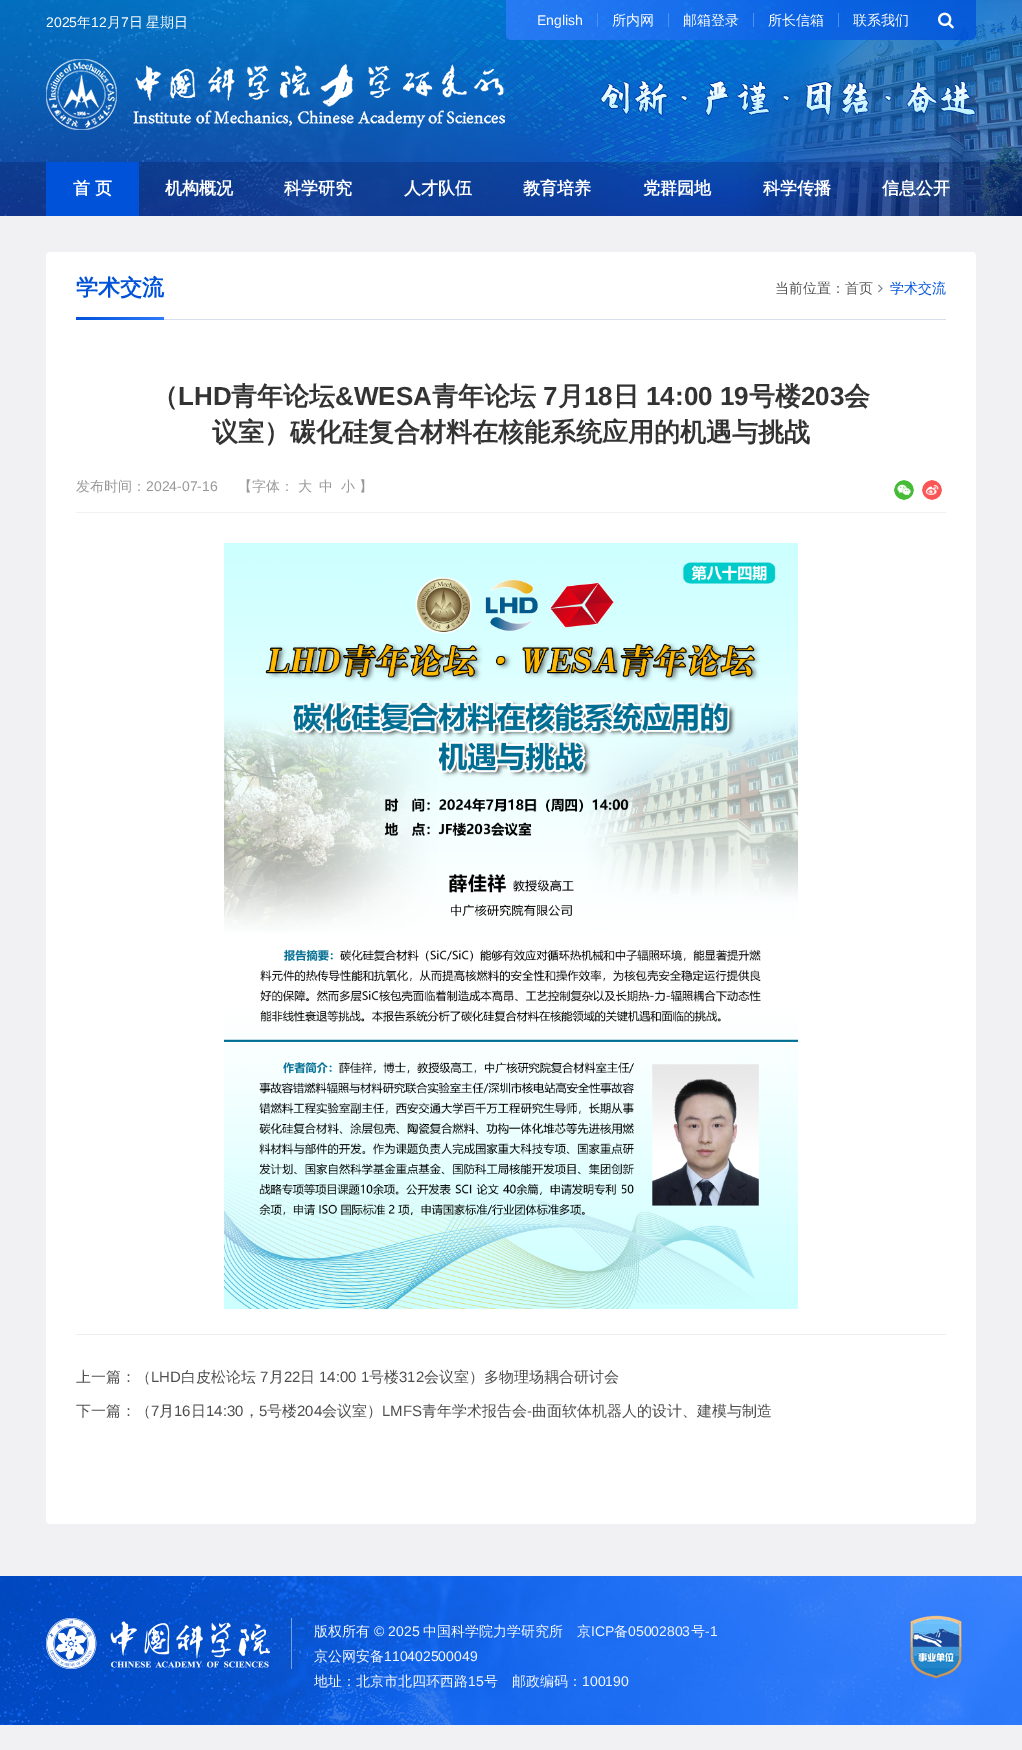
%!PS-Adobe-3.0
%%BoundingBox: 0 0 1022 1750
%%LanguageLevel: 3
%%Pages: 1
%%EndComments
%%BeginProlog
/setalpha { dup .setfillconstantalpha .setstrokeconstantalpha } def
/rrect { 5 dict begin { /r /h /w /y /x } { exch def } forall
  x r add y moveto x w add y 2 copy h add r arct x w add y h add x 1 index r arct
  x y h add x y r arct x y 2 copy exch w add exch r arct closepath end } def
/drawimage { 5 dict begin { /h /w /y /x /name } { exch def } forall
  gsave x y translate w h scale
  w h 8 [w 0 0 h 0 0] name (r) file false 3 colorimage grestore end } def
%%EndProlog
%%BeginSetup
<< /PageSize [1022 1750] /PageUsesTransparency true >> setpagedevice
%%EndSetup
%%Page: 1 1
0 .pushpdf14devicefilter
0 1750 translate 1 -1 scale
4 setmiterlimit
0.945 0.945 0.953 setrgbcolor
0 0 1022 1750 rectfill
(images/1.raw) 0 0 1022 216 drawimage
(images/2.raw) 506 0 470 40 drawimage
0.302 0.569 0.953 setrgbcolor
597 13 1 14 rectfill
668 13 1 14 rectfill
753 13 1 14 rectfill
838 13 1 14 rectfill
(images/3.raw) 938 12 16 17 drawimage
(images/4.raw) 46 59 459 71 drawimage
(images/5.raw) 600 80 376 36 drawimage
0.2 setalpha
0 0 0.212 setrgbcolor
0 162 1022 54 rectfill
1 setalpha
0 0.322 0.851 setrgbcolor
46 162 93 54 rectfill
1 setgray
46 252 930 1272 4 rrect fill
0.839 0.875 0.922 setrgbcolor
164 319 782 1 rectfill
gsave newpath 76 317 moveto 164 317 lineto 164 320 lineto 76 320 lineto closepath clip newpath
<< /ShadingType 2 /ColorSpace /DeviceRGB /Coords [-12 319 164 319] /Extend [true true] /Function << /FunctionType 3 /Domain [0 1] /Functions [<< /FunctionType 2 /Domain [0 1] /C0 [0.184 0.486 0.984] /C1 [0 0.322 0.855] /N 1 >> << /FunctionType 2 /Domain [0 1] /C0 [0 0.322 0.855] /C1 [0.184 0.486 0.984] /N 1 >>] /Bounds [0.5] /Encode [0 1 0 1] >> >> shfill grestore
(images/6.raw) 878 284 5 9 drawimage
0.945 0.945 0.953 setrgbcolor
76 512 870 1 rectfill
(images/7.raw) 894 480 20 20 drawimage
(images/8.raw) 922 480 20 20 drawimage
(images/9.raw) 224 543 574 766 drawimage
0.933 setgray
76 1334 870 1 rectfill
(images/10.raw) 0 1576 1022 149 drawimage
0.467 0.631 0.898 setrgbcolor
291 1618 1 51 rectfill
(images/11.raw) 46 1618 224 51 drawimage
(images/12.raw) 910 1615 52 64 drawimage
/LiberationSans-Regular [14 0 0 -14 0 0] selectfont
1 setgray
46 27 moveto (2025) show
/WenQuanYiZenHei-Medium [14 0 0 -14 0 0] selectfont
77 27 moveto (年) show
/LiberationSans-Regular [14 0 0 -14 0 0] selectfont
91 27 moveto (12) show
/WenQuanYiZenHei-Medium [14 0 0 -14 0 0] selectfont
107 27 moveto (月) show
/LiberationSans-Regular [14 0 0 -14 0 0] selectfont
121 27 moveto (7) show
/WenQuanYiZenHei-Medium [14 0 0 -14 0 0] selectfont
129 27 moveto (日) show
146 27 moveto (星期日) show
/LiberationSans-Regular [14 0 0 -14 0 0] selectfont
537 25 moveto (English) show
/WenQuanYiZenHei-Medium [14 0 0 -14 0 0] selectfont
612 25 moveto (所内网) show
683 25 moveto (邮箱登录) show
768 25 moveto (所长信箱) show
853 25 moveto (联系我们) show
/WenQuanYiZenHei-Bold [17 0 0 -17 0 0] selectfont
73 194 moveto (首 页) show
165 194 moveto (机构概况) show
284 194 moveto (科学研究) show
404 194 moveto (人才队伍) show
523 194 moveto (教育培养) show
643 194 moveto (党群园地) show
763 194 moveto (科学传播) show
882 194 moveto (信息公开) show
/WenQuanYiZenHei-Bold [22 0 0 -22 0 0] selectfont
0 0.322 0.851 setrgbcolor
76 295 moveto (学术交流) show
/WenQuanYiZenHei-Medium [14 0 0 -14 0 0] selectfont
0.329 setgray
775 293 moveto (当前位置：首页) show
0 0.322 0.851 setrgbcolor
890 293 moveto (学术交流) show
/WenQuanYiZenHei-Bold [26 0 0 -26 0 0] selectfont
0.2 setgray
152 405 moveto (（) show
/LiberationSans-Bold [26 0 0 -26 0 0] selectfont
178 405 moveto (LHD) show
/WenQuanYiZenHei-Bold [26 0 0 -26 0 0] selectfont
231 405 moveto (青年论坛) show
/LiberationSans-Bold [26 0 0 -26 0 0] selectfont
335 405 moveto (&WESA) show
/WenQuanYiZenHei-Bold [26 0 0 -26 0 0] selectfont
432 405 moveto (青年论坛) show
/LiberationSans-Bold [26 0 0 -26 0 0] selectfont
543 405 moveto (7) show
/WenQuanYiZenHei-Bold [26 0 0 -26 0 0] selectfont
558 405 moveto (月) show
/LiberationSans-Bold [26 0 0 -26 0 0] selectfont
584 405 moveto (18) show
/WenQuanYiZenHei-Bold [26 0 0 -26 0 0] selectfont
613 405 moveto (日) show
/LiberationSans-Bold [26 0 0 -26 0 0] selectfont
646 405 moveto (14:00 19) show
/WenQuanYiZenHei-Bold [26 0 0 -26 0 0] selectfont
749 405 moveto (号楼) show
/LiberationSans-Bold [26 0 0 -26 0 0] selectfont
801 405 moveto (203) show
/WenQuanYiZenHei-Bold [26 0 0 -26 0 0] selectfont
844 405 moveto (会) show
212 441 moveto (议室）碳化硅复合材料在核能系统应用的机遇与挑战) show
/WenQuanYiZenHei-Medium [14 0 0 -14 0 0] selectfont
0.6 setgray
76 491 moveto (发布时间：) show
/LiberationSans-Regular [14 0 0 -14 0 0] selectfont
146 491 moveto (2024-07-16) show
/WenQuanYiZenHei-Medium [14 0 0 -14 0 0] selectfont
238 491 moveto (【字体：) show
298 491 moveto (大) show
319 491 moveto (中) show
341 491 moveto (小) show
359 491 moveto (】) show
/WenQuanYiZenHei-Medium [15 0 0 -15 0 0] selectfont
0.302 setgray
76 1382 moveto (上一篇：（) show
/LiberationSans-Regular [15 0 0 -15 0 0] selectfont
151 1382 moveto (LHD) show
/WenQuanYiZenHei-Medium [15 0 0 -15 0 0] selectfont
181 1382 moveto (白皮松论坛) show
/LiberationSans-Regular [15 0 0 -15 0 0] selectfont
260 1382 moveto (7) show
/WenQuanYiZenHei-Medium [15 0 0 -15 0 0] selectfont
269 1382 moveto (月) show
/LiberationSans-Regular [15 0 0 -15 0 0] selectfont
284 1382 moveto (22) show
/WenQuanYiZenHei-Medium [15 0 0 -15 0 0] selectfont
300 1382 moveto (日) show
/LiberationSans-Regular [15 0 0 -15 0 0] selectfont
319 1382 moveto (14:00 1) show
/WenQuanYiZenHei-Medium [15 0 0 -15 0 0] selectfont
369 1382 moveto (号楼) show
/LiberationSans-Regular [15 0 0 -15 0 0] selectfont
399 1382 moveto (312) show
/WenQuanYiZenHei-Medium [15 0 0 -15 0 0] selectfont
424 1382 moveto (会议室）多物理场耦合研讨会) show
76 1416 moveto (下一篇：（) show
/LiberationSans-Regular [15 0 0 -15 0 0] selectfont
151 1416 moveto (7) show
/WenQuanYiZenHei-Medium [15 0 0 -15 0 0] selectfont
159 1416 moveto (月) show
/LiberationSans-Regular [15 0 0 -15 0 0] selectfont
174 1416 moveto (16) show
/WenQuanYiZenHei-Medium [15 0 0 -15 0 0] selectfont
191 1416 moveto (日) show
/LiberationSans-Regular [15 0 0 -15 0 0] selectfont
206 1416 moveto (14:30) show
259 1416 moveto (5) show
/WenQuanYiZenHei-Medium [15 0 0 -15 0 0] selectfont
267 1416 moveto (号楼) show
/LiberationSans-Regular [15 0 0 -15 0 0] selectfont
297 1416 moveto (204) show
/WenQuanYiZenHei-Medium [15 0 0 -15 0 0] selectfont
322 1416 moveto (会议室）) show
/LiberationSans-Regular [15 0 0 -15 0 0] selectfont
382 1416 moveto (LMFS) show
/WenQuanYiZenHei-Medium [15 0 0 -15 0 0] selectfont
422 1416 moveto (青年学术报告会) show
/LiberationSans-Regular [15 0 0 -15 0 0] selectfont
527 1416 moveto (-) show
/WenQuanYiZenHei-Medium [15 0 0 -15 0 0] selectfont
532 1416 moveto (曲面软体机器人的设计、建模与制造) show
244 1416 moveto (，) show
/WenQuanYiZenHei-Medium [14 0 0 -14 0 0] selectfont
0.953 0.973 1 setrgbcolor
314 1636 moveto (版权所有) show
/LiberationSans-Regular [14 0 0 -14 0 0] selectfont
374 1636 moveto (© 2025) show
/WenQuanYiZenHei-Medium [14 0 0 -14 0 0] selectfont
423 1636 moveto (中国科学院力学研究所) show
577 1636 moveto (京) show
/LiberationSans-Regular [14 0 0 -14 0 0] selectfont
591 1636 moveto (ICP) show
/WenQuanYiZenHei-Medium [14 0 0 -14 0 0] selectfont
614 1636 moveto (备) show
/LiberationSans-Regular [14 0 0 -14 0 0] selectfont
628 1636 moveto (05002803) show
/WenQuanYiZenHei-Medium [14 0 0 -14 0 0] selectfont
691 1636 moveto (号) show
/LiberationSans-Regular [14 0 0 -14 0 0] selectfont
705 1636 moveto (-1) show
/WenQuanYiZenHei-Medium [14 0 0 -14 0 0] selectfont
314 1661 moveto (京公网安备) show
/LiberationSans-Regular [14 0 0 -14 0 0] selectfont
384 1661 moveto (110402500049) show
/WenQuanYiZenHei-Medium [14 0 0 -14 0 0] selectfont
314 1686 moveto (地址：北京市北四环西路) show
/LiberationSans-Regular [14 0 0 -14 0 0] selectfont
468 1686 moveto (15) show
/WenQuanYiZenHei-Medium [14 0 0 -14 0 0] selectfont
484 1686 moveto (号) show
512 1686 moveto (邮政编码：) show
/LiberationSans-Regular [14 0 0 -14 0 0] selectfont
582 1686 moveto (100190) show
.poppdf14devicefilter showpage
%%EOF
